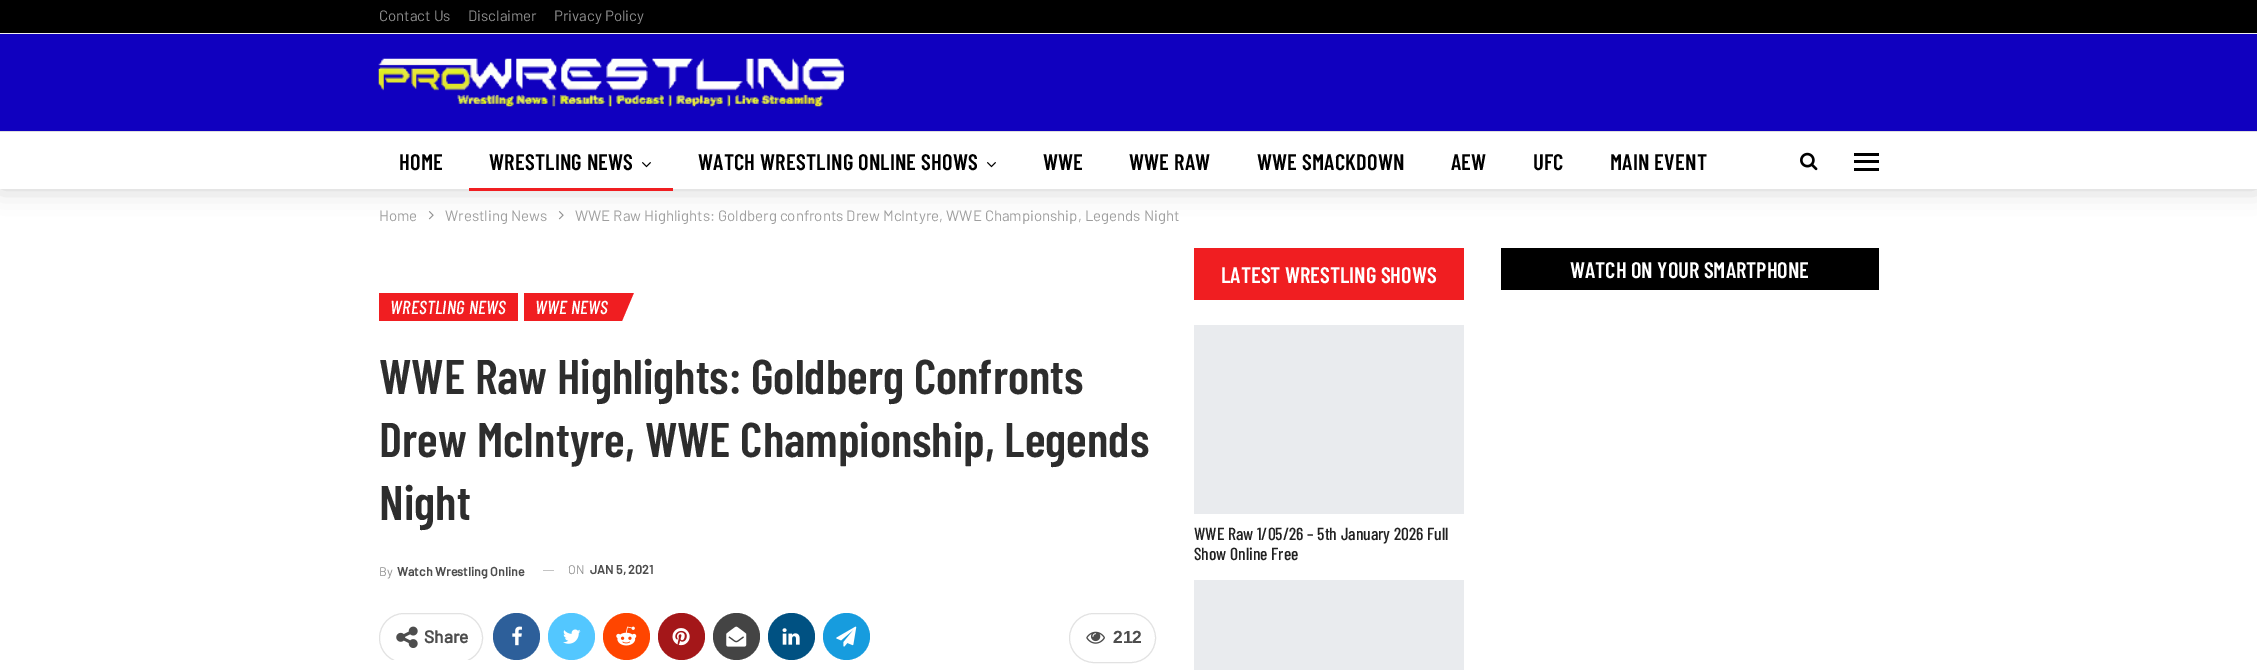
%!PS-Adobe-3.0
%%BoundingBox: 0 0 2257 670
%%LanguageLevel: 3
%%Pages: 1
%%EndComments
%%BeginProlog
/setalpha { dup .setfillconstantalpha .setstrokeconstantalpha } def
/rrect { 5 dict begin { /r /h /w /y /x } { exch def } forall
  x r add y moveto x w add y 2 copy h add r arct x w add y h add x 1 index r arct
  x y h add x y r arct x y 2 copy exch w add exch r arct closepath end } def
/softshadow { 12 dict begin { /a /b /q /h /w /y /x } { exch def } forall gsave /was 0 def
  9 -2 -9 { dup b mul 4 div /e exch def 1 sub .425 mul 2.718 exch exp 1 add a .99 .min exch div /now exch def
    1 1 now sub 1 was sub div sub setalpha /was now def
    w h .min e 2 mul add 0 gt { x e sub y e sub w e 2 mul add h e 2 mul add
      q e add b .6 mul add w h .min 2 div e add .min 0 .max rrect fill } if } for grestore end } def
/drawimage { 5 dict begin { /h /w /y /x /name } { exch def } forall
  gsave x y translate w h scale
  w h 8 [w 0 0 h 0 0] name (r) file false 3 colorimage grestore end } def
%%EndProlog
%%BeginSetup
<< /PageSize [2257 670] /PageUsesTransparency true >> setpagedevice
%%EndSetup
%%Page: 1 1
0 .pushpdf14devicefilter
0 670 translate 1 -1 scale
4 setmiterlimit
1 setgray
0 0 2257 670 rectfill
0 setgray
0 -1 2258 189 0 12.5 0.2 softshadow
0.063 0 0.749 setrgbcolor
0 34 2257 97 rectfill
0 setgray
0 0 2257 33 rectfill
0.937 setgray
0 33 2257 1 rectfill
(images/1.raw) 378 58 466 49 drawimage
1 setgray
0 132 2257 57 rectfill
0.871 setgray
0 131 2257 1 rectfill
(images/2.raw) 642 162 9 6 drawimage
0.941 0.118 0.129 setrgbcolor
469 188 204 3 rectfill
(images/2.raw) 987 162 9 6 drawimage
(images/3.raw) 1800 152 18 19 drawimage
0 setgray
1854 160 25 3 rectfill
1854 153 25 3 rectfill
1854 168 25 3 rectfill
(images/4.raw) 428 211 6 9 drawimage
(images/4.raw) 558 211 6 9 drawimage
0.941 0.118 0.129 setrgbcolor
379 293 139 28 rectfill
524 293 94 28 rectfill
0.769 setgray
543 570 11 1 rectfill
gsave
379 613 690 47 rectclip
0.886 setgray
379.5 613.5 103 49 24.5 rrect stroke
grestore
(images/5.raw) 396 626 22 22 drawimage
0.176 0.373 0.604 setrgbcolor
newpath 516.5 636.5 23.5 0 360 arc closepath fill
(images/6.raw) 512 626 10 20 drawimage
0.325 0.78 1 setrgbcolor
newpath 571.5 636.5 23.5 0 360 arc closepath fill
(images/7.raw) 563 629 18 15 drawimage
1 0.271 0 setrgbcolor
newpath 626.5 636.5 23.5 0 360 arc closepath fill
(images/8.raw) 616 626 21 20 drawimage
0.643 0.09 0.098 setrgbcolor
newpath 681.5 636.5 23.5 0 360 arc closepath fill
(images/9.raw) 672 628 18 18 drawimage
0.267 setgray
newpath 736.5 636.5 23.5 0 360 arc closepath fill
(images/10.raw) 726 626 21 21 drawimage
0 0.318 0.51 setrgbcolor
newpath 791.5 636.5 23.5 0 360 arc closepath fill
(images/11.raw) 782 628 18 17 drawimage
0.09 0.612 0.871 setrgbcolor
newpath 846.5 636.5 23.5 0 360 arc closepath fill
(images/12.raw) 836 626 21 21 drawimage
0.886 setgray
1069.5 613.5 86 49 24.5 rrect stroke
(images/13.raw) 1086 631 19 13 drawimage
0.941 0.118 0.129 setrgbcolor
1194 248 270 52 rectfill
0.914 0.922 0.933 setrgbcolor
1194 325 270 189 rectfill
1194 580 270 90 rectfill
0 setgray
1501 248 378 42 rectfill
/Barlow-Regular [15 0 0 -15 0 0] selectfont
0.553 setgray
379 21 moveto (Contact Us) show
468 21 moveto (Disclaimer) show
554 21 moveto (Privacy Policy) show
/BarlowCondensed-SemiBold [22.5 0 0 -22.5 0 0] selectfont
0 setgray
399 170 moveto 0.2 0 (HOME) ashow
489 170 moveto 0.2 0 (WRESTLING NEWS) ashow
698 170 moveto 0.2 0 (WATCH WRESTLING ONLINE SHOWS) ashow
1043 170 moveto 0.2 0 (WWE) ashow
1129 170 moveto 0.2 0 (WWE RAW) ashow
1257 170 moveto 0.2 0 (WWE SMACKDOWN) ashow
1451 170 moveto 0.2 0 (AEW) ashow
1533 170 moveto 0.2 0 (UFC) ashow
1610 170 moveto 0.2 0 (MAIN EVENT) ashow
/Barlow-Regular [15 0 0 -15 0 0] selectfont
0.62 setgray
379 221 moveto (Home) show
445 221 moveto (Wrestling News) show
575 221 moveto (WWE Raw Highlights: Goldberg confronts Drew McIntyre, WWE Championship, Legends Night) show
/BarlowCondensed-MediumItalic [18.75 0 0 -18.75 0 0] selectfont
1 setgray
390 314 moveto 0.25 0 (WRESTLING NEWS) ashow
535 314 moveto 0.25 0 (WWE NEWS) ashow
gsave
379 293 777 295 rectclip
0.941 0.118 0.129 setrgbcolor
newpath 618 292.5 moveto 634 292.5 lineto 622 321 lineto 606 321 lineto closepath fill
grestore
/BarlowCondensed-SemiBold [48.75 0 0 -48.75 0 0] selectfont
0.176 setgray
379 394 moveto (WWE Raw Highlights: Goldberg Confronts) show
379 457 moveto (Drew McIntyre, WWE Championship, Legends) show
379 520 moveto (Night) show
/Barlow-Regular [12.5 0 0 -12.5 0 0] selectfont
0.553 setgray
379 576 moveto (By) show
/Barlow-Bold [12.5 0 0 -12.5 0 0] selectfont
0.302 setgray
397 576 moveto (Watch Wrestling Online) show
/Barlow-Regular [12.5 0 0 -12.5 0 0] selectfont
0.553 setgray
568 574 moveto (ON) show
/Barlow-Bold [12.5 0 0 -12.5 0 0] selectfont
0.302 setgray
590 574 moveto (JAN 5, 2021) show
/Barlow-Bold [17.5 0 0 -17.5 0 0] selectfont
424 643 moveto (Share) show
/LiberationSans-Bold [17.5 0 0 -17.5 0 0] selectfont
1113 643 moveto (212) show
/BarlowCondensed-SemiBold [22.5 0 0 -22.5 0 0] selectfont
1 setgray
1221 283 moveto (LATEST WRESTLING SHOWS) show
/BarlowCondensed-Medium [17.5 0 0 -17.5 0 0] selectfont
0.129 setgray
1194 540 moveto (WWE Raw 1/05/26 – 5th January 2026 Full) show
1194 560 moveto (Show Online Free) show
/BarlowCondensed-SemiBold [22.5 0 0 -22.5 0 0] selectfont
1 setgray
1570 278 moveto (WATCH ON YOUR SMARTPHONE) show
.poppdf14devicefilter showpage
%%EOF
